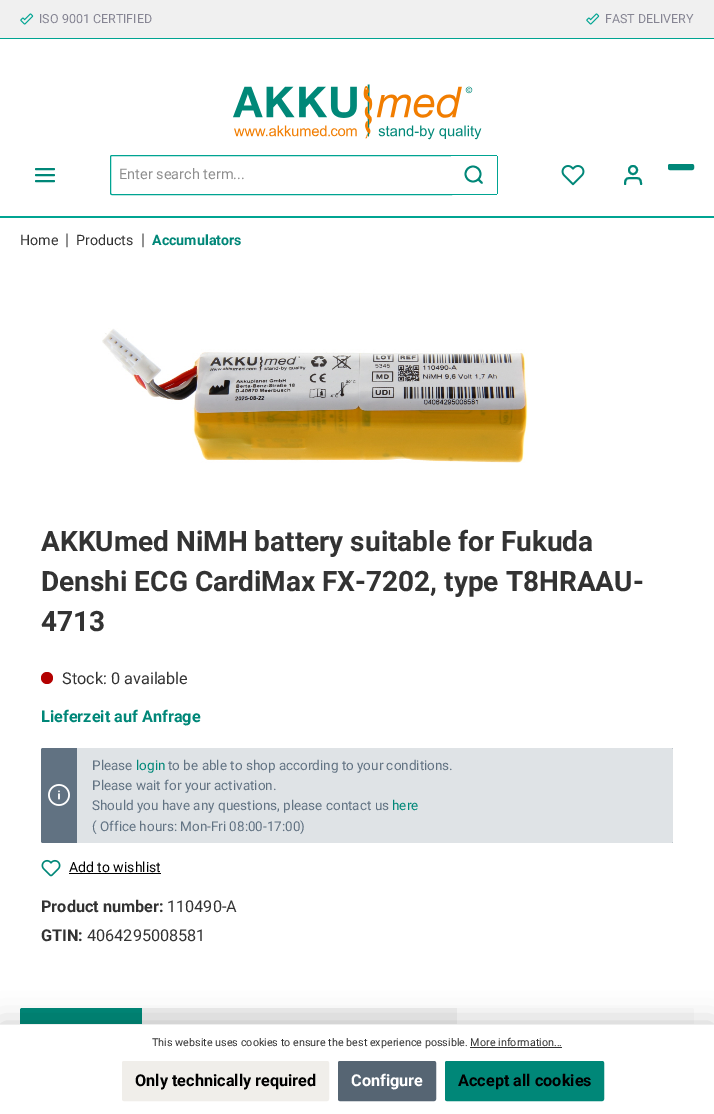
%!PS-Adobe-3.0
%%BoundingBox: 0 0 714 1114
%%LanguageLevel: 3
%%Pages: 1
%%EndComments
%%BeginProlog
/setalpha { dup .setfillconstantalpha .setstrokeconstantalpha } def
/rrect { 5 dict begin { /r /h /w /y /x } { exch def } forall
  x r add y moveto x w add y 2 copy h add r arct x w add y h add x 1 index r arct
  x y h add x y r arct x y 2 copy exch w add exch r arct closepath end } def
/softshadow { 12 dict begin { /a /b /q /h /w /y /x } { exch def } forall gsave /was 0 def
  9 -2 -9 { dup b mul 4 div /e exch def 1 sub .425 mul 2.718 exch exp 1 add a .99 .min exch div /now exch def
    1 1 now sub 1 was sub div sub setalpha /was now def
    w h .min e 2 mul add 0 gt { x e sub y e sub w e 2 mul add h e 2 mul add
      q e add b .6 mul add w h .min 2 div e add .min 0 .max rrect fill } if } for grestore end } def
/drawimage { 5 dict begin { /h /w /y /x /name } { exch def } forall
  gsave x y translate w h scale
  w h 8 [w 0 0 h 0 0] name (r) file false 3 colorimage grestore end } def
%%EndProlog
%%BeginSetup
<< /PageSize [714 1114] /PageUsesTransparency true >> setpagedevice
%%EndSetup
%%Page: 1 1
0 .pushpdf14devicefilter
0 1114 translate 1 -1 scale
4 setmiterlimit
1 setgray
0 0 714 1114 rectfill
0.941 setgray
0 0 714 38 rectfill
0 0.643 0.573 setrgbcolor
0 38 714 1 rectfill
(images/1.raw) 20 13 14 12 drawimage
(images/1.raw) 586 13 14 12 drawimage
(images/2.raw) 233 84 249 56 drawimage
0 0.529 0.471 setrgbcolor
2 setlinewidth
1 setlinecap
1 setlinejoin
newpath 36 175 moveto 54 175 lineto 36 169 moveto 54 169 lineto 36 181 moveto 54 181 lineto stroke
0 0.643 0.573 setrgbcolor
1 setlinewidth
0 setlinecap
0 setlinejoin
newpath 112 155.5 moveto 451.5 155.5 lineto 451.5 194.5 lineto 112 194.5 lineto 111 194.5 110.5 194 110.5 193 curveto 110.5 157 lineto 110.5 156 111 155.5 112 155.5 curveto closepath stroke
1 setgray
newpath 451 155 moveto 496 155 lineto 497 155 498 156 498 157 curveto 498 193 lineto 498 194 497 195 496 195 curveto 451 195 lineto closepath fill
0 0.643 0.573 setrgbcolor
451 155 46 1 rectfill
497 156 1 38 rectfill
451 194 46 1 rectfill
0 0.529 0.471 setrgbcolor
1.8 setlinewidth
newpath 473 174 7.5 0 360 arc closepath stroke
1 setlinecap
1 setlinejoin
newpath 482 183 moveto 478.5 179.5 lineto stroke
(images/3.raw) 561 165 24 21 drawimage
2 setlinewidth
0 setlinecap
0 setlinejoin
newpath 633 170 4 0 360 arc closepath stroke
1 setlinecap
1 setlinejoin
newpath 641 184 moveto 641 177.5 638.5 178 633 178 curveto 627.5 178 625 177.5 625 184 curveto stroke
668.5 164.5 25 5 1.5 rrect gsave fill grestore
1 setlinewidth
0 setlinecap
0 setlinejoin
stroke
0 0.643 0.573 setrgbcolor
0 216 714 2 rectfill
(images/4.raw) 102 328 426 135 drawimage
0.702 0 0 setrgbcolor
newpath 47 678 6 0 360 arc closepath fill
0.38 0.447 0.51 setrgbcolor
41 748 632 95 2 rrect fill
(images/5.raw) 48 784 22 22 drawimage
0.875 0.89 0.902 setrgbcolor
newpath 77 748 moveto 671 748 lineto 672 748 673 749 673 750 curveto 673 841 lineto 673 842 672 843 671 843 curveto 77 843 lineto closepath fill
(images/6.raw) 41 859 20 18 drawimage
0 setgray
69 873 92 1 rectfill
gsave
20 1008 674 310 2 rrect clip newpath
0.98 setgray
newpath 24 1008 moveto 692 1008 lineto 693 1008 694 1009 694 1010 curveto 694 1059 lineto 20 1059 lineto 20 1012 lineto 20 1010 22 1008 24 1008 curveto closepath fill
grestore
0 0.529 0.471 setrgbcolor
newpath 22 1008 moveto 142 1008 lineto 142 1057 lineto 20 1057 lineto 20 1010 lineto 20 1009 21 1008 22 1008 curveto closepath fill
0.933 setgray
142 1008 315 16 rectfill
0 setgray
0 1024 714 90 0 15 0.2 softshadow
1 setgray
0 1025 714 89 rectfill
0.933 setgray
0 1024 714 1 rectfill
0.2 setgray
470 1047 92 1 rectfill
0.941 0.933 0.918 setrgbcolor
122.5 1061.5 206 39 1.5 rrect gsave fill grestore
stroke
0.337 0.396 0.451 setrgbcolor
338.5 1061.5 97 39 1.5 rrect gsave fill grestore
stroke
0 0.529 0.471 setrgbcolor
445.5 1061.5 158 39 1.5 rrect gsave fill grestore
stroke
/Roboto-Regular [12.5 0 0 -12.5 0 0] selectfont
0.525 0.522 0.576 setrgbcolor
39 23 moveto (ISO 9001 CERTIFIED) show
605 23 moveto (FAST DELIVERY) show
/Roboto-Regular [14.5 0 0 -14.5 0 0] selectfont
0.557 setgray
119 179 moveto (Enter search term...) show
/Roboto-Regular [14.25 0 0 -14.25 0 0] selectfont
0.2 setgray
20 245 moveto (Home) show
/Roboto-Regular [16.25 0 0 -16.25 0 0] selectfont
65 245 moveto (|) show
/Roboto-Regular [14.25 0 0 -14.25 0 0] selectfont
76 245 moveto (Products) show
/Roboto-Regular [16.25 0 0 -16.25 0 0] selectfont
141 245 moveto (|) show
/Roboto-Bold [14.25 0 0 -14.25 0 0] selectfont
0 0.529 0.471 setrgbcolor
152 245 moveto (Accumulators) show
/Roboto-Bold [28 0 0 -28 0 0] selectfont
0.2 setgray
41 551 moveto (AKKUmed NiMH battery suitable for Fukuda) show
41 591 moveto (Denshi ECG CardiMax FX-7202, type T8HRAAU-) show
41 631 moveto (4713) show
/Roboto-Regular [16.25 0 0 -16.25 0 0] selectfont
62 684 moveto (Stock: 0 available) show
/Roboto-Bold [16.25 0 0 -16.25 0 0] selectfont
0 0.529 0.471 setrgbcolor
41 722 moveto (Lieferzeit auf Anfrage) show
/Roboto-Regular [13.5 0 0 -13.5 0 0] selectfont
0.38 0.447 0.51 setrgbcolor
92 770 moveto (Please) show
0 0.529 0.471 setrgbcolor
136 770 moveto (login) show
0.38 0.447 0.51 setrgbcolor
168 770 moveto (to be able to shop according to your conditions.) show
92 790 moveto (Please wait for your activation.) show
92 810 moveto (Should you have any questions, please contact us) show
0 0.529 0.471 setrgbcolor
392 810 moveto (here) show
0.38 0.447 0.51 setrgbcolor
92 831 moveto (\( Office hours: Mon-Fri 08:00-17:00\)) show
/Roboto-Regular [14 0 0 -14 0 0] selectfont
0 setgray
69 872 moveto (Add to wishlist) show
/Roboto-Bold [16.25 0 0 -16.25 0 0] selectfont
0.2 setgray
41 912 moveto (Product number:) show
/Roboto-Regular [16.25 0 0 -16.25 0 0] selectfont
167 912 moveto (110490-A) show
/Roboto-Bold [16.25 0 0 -16.25 0 0] selectfont
41 941 moveto (GTIN:) show
/Roboto-Regular [16.25 0 0 -16.25 0 0] selectfont
87 941 moveto (4064295008581) show
/Roboto-Regular [10.8 0 0 -10.8 0 0] selectfont
152 1046 moveto (This website uses cookies to ensure the best experience possible. More information...) show
/Roboto-Bold [16.25 0 0 -16.25 0 0] selectfont
0 setgray
135 1086 moveto (Only technically required) show
1 setgray
351 1086 moveto (Configure) show
0 setgray
458 1086 moveto (Accept all cookies) show
.poppdf14devicefilter showpage
%%EOF
